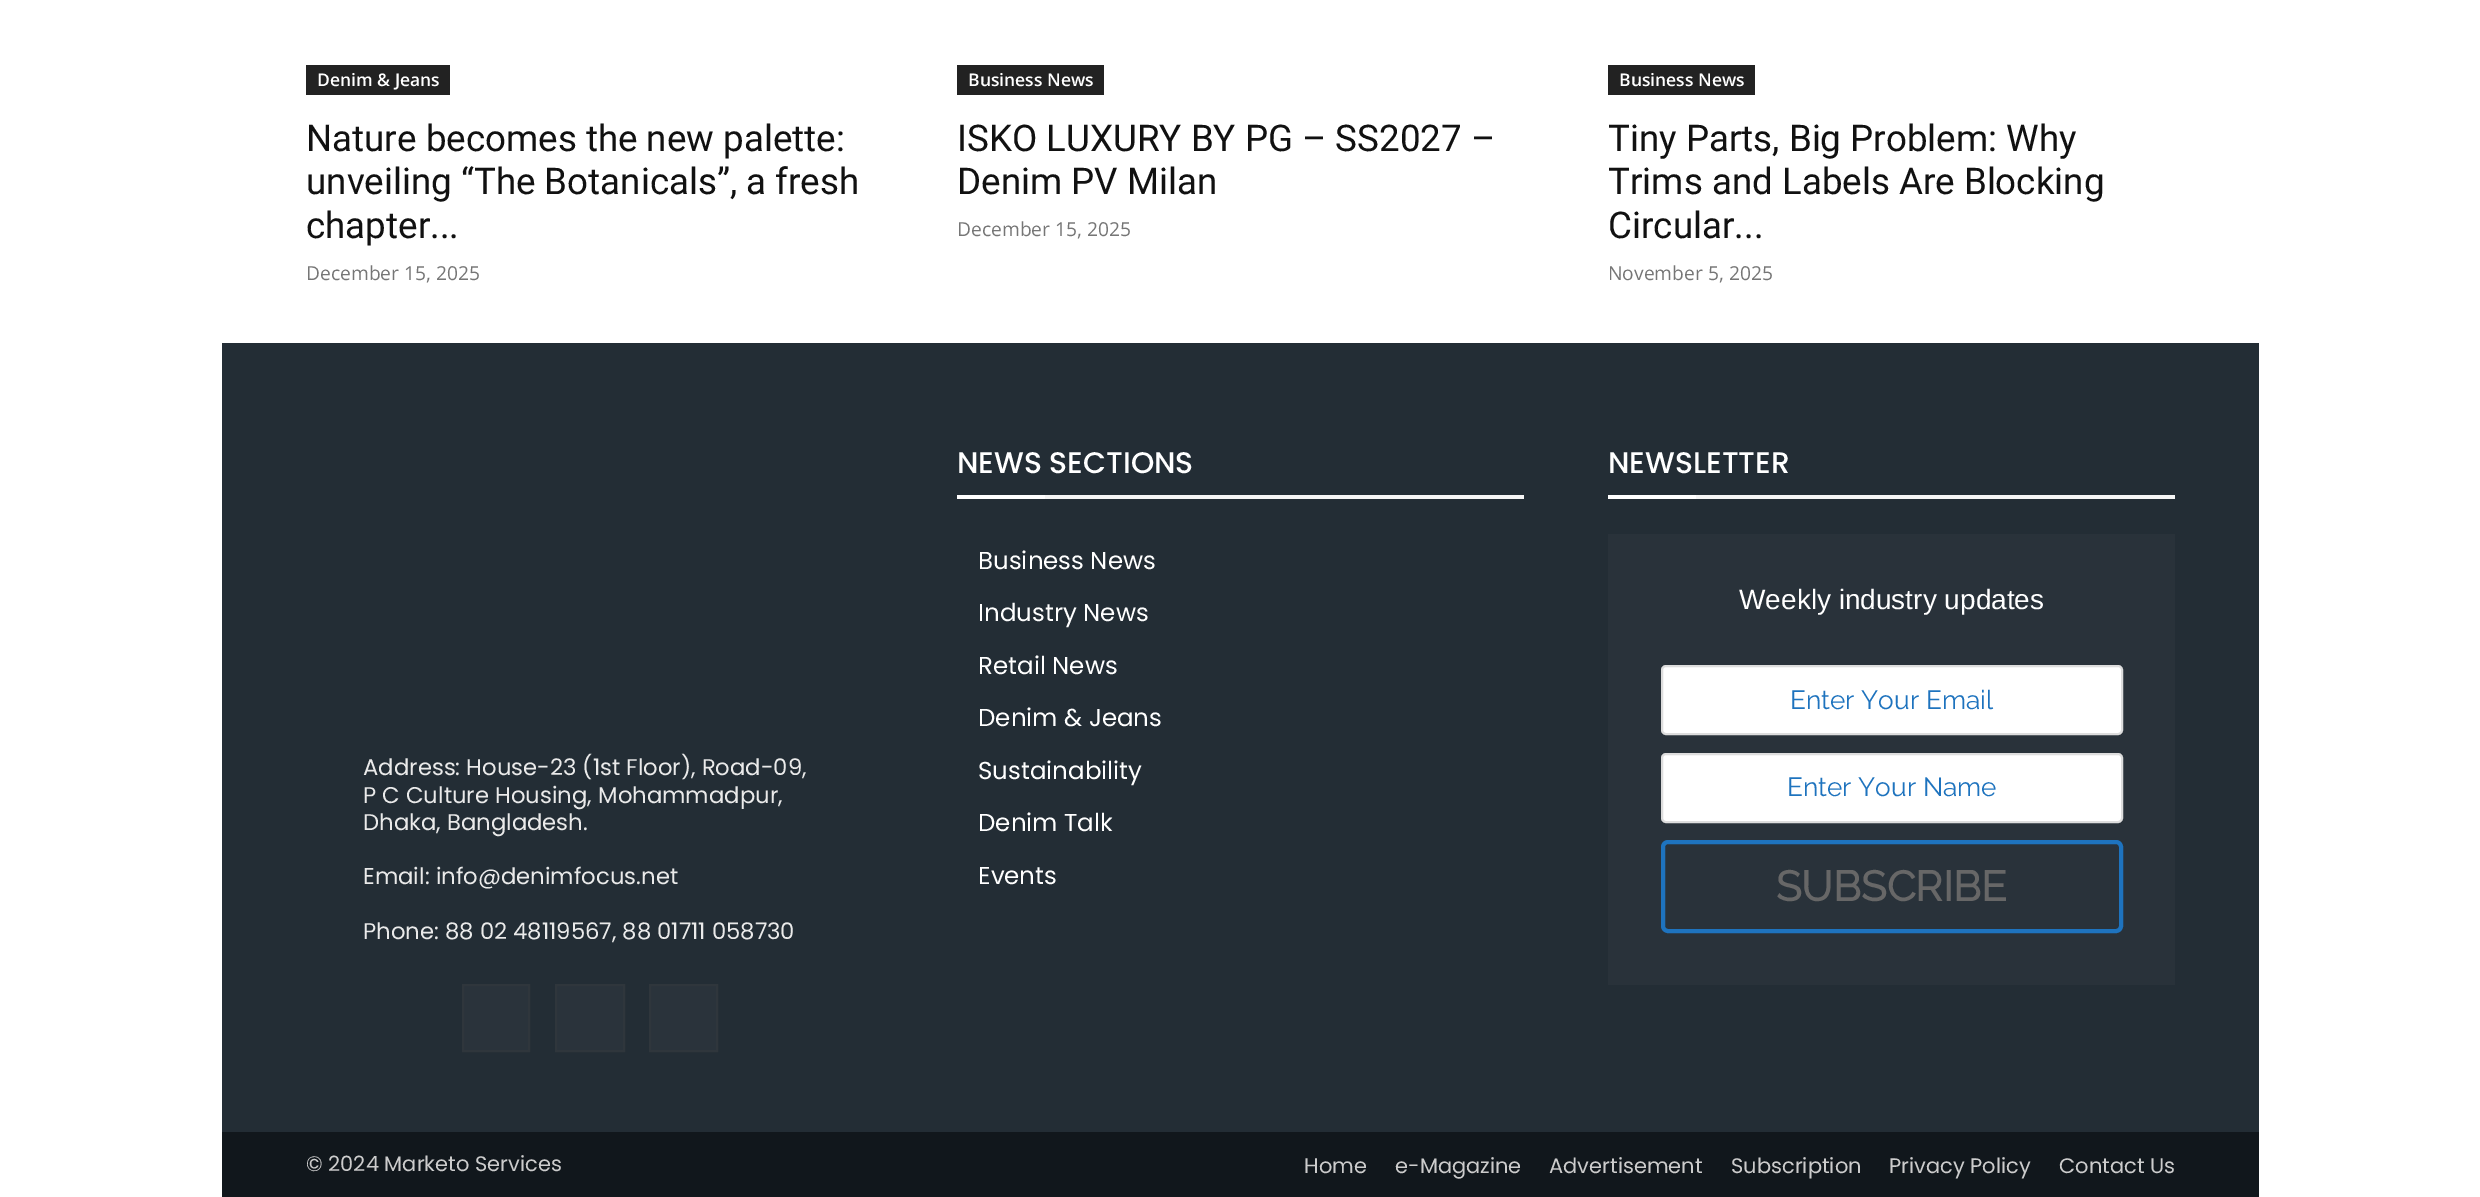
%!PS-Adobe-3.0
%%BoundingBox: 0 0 2480 1197
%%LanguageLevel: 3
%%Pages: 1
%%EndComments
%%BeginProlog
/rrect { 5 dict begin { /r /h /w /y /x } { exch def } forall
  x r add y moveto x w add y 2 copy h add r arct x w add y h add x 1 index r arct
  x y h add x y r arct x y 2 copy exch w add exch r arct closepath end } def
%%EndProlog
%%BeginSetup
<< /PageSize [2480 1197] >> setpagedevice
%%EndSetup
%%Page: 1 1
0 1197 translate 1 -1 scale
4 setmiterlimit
1 setgray
0 0 2480 1197 rectfill
0.133 setgray
306 65 144 30 rectfill
957 65 147 30 rectfill
1608 65 147 30 rectfill
0.137 0.176 0.208 setrgbcolor
222 343 2037 789 rectfill
0.165 0.2 0.231 setrgbcolor
newpath 463 985 moveto 529 985 lineto 529 1051 lineto 463 1051 lineto closepath gsave fill grestore
0.184 0.212 0.235 setrgbcolor
2 setlinewidth
stroke
0.165 0.2 0.231 setrgbcolor
newpath 556 985 moveto 624 985 lineto 624 1051 lineto 556 1051 lineto closepath gsave fill grestore
0.184 0.212 0.235 setrgbcolor
stroke
0.165 0.2 0.231 setrgbcolor
newpath 650 985 moveto 717 985 lineto 717 1051 lineto 650 1051 lineto closepath gsave fill grestore
0.184 0.212 0.235 setrgbcolor
stroke
1 setgray
957 495 88 4 rectfill
0.961 setgray
1045 495 479 4 rectfill
1 setgray
1608 495 88 4 rectfill
0.961 setgray
1696 495 479 4 rectfill
0.161 0.196 0.227 setrgbcolor
1608 534 567 451 rectfill
1 setgray
1662 666 460 68 4 rrect gsave fill grestore
0.867 setgray
stroke
1 setgray
1662 754 460 68 4 rrect gsave fill grestore
0.867 setgray
stroke
0.118 0.451 0.745 setrgbcolor
4 setlinewidth
1663 842 458 89 5 rrect stroke
0.067 0.09 0.11 setrgbcolor
222 1132 2037 65 rectfill
/OpenSans-SemiBold [17.5 0 0 -17.5 0 0] selectfont
1 setgray
317 86 moveto (Denim & Jeans) show
/Roboto-Regular [36.75 0 0 -36.75 0 0] selectfont
0.067 setgray
306 151 moveto (Nature becomes the new palette:) show
306 194 moveto (unveiling “The Botanicals”, a fresh) show
306 238 moveto (chapter...) show
/OpenSans-Regular [19.25 0 0 -19.25 0 0] selectfont
0.463 setgray
306 280 moveto (December 15, 2025) show
/OpenSans-SemiBold [17.5 0 0 -17.5 0 0] selectfont
1 setgray
968 86 moveto (Business News) show
/Roboto-Regular [36.75 0 0 -36.75 0 0] selectfont
0.067 setgray
957 151 moveto (ISKO LUXURY BY PG – SS2027 –) show
957 194 moveto (Denim PV Milan) show
/OpenSans-Regular [19.25 0 0 -19.25 0 0] selectfont
0.463 setgray
957 236 moveto (December 15, 2025) show
/OpenSans-SemiBold [17.5 0 0 -17.5 0 0] selectfont
1 setgray
1619 86 moveto (Business News) show
/Roboto-Regular [36.75 0 0 -36.75 0 0] selectfont
0.067 setgray
1608 151 moveto (Tiny Parts, Big Problem: Why) show
1608 194 moveto (Trims and Labels Are Blocking) show
1608 238 moveto (Circular...) show
/OpenSans-Regular [19.25 0 0 -19.25 0 0] selectfont
0.463 setgray
1608 280 moveto (November 5, 2025) show
/Poppins-Regular [22.75 0 0 -22.75 0 0] selectfont
0.918 setgray
363 775 moveto (Address: House-23 \(1st Floor\), Road-09,) show
363 803 moveto (P C Culture Housing, Mohammadpur,) show
363 830 moveto (Dhaka, Bangladesh.) show
363 884 moveto (Email: info@denimfocus.net) show
363 939 moveto (Phone: 88 02 48119567, 88 01711 058730) show
/Poppins-Medium [29.75 0 0 -29.75 0 0] selectfont
1 setgray
957 473 moveto (NEWS SECTIONS) show
/Poppins-Regular [24.5 0 0 -24.5 0 0] selectfont
978 569 moveto (Business News) show
978 621 moveto (Industry News) show
978 674 moveto (Retail News) show
978 726 moveto (Denim & Jeans) show
978 779 moveto (Sustainability) show
978 831 moveto (Denim Talk) show
978 884 moveto (Events) show
/Poppins-Medium [29.75 0 0 -29.75 0 0] selectfont
1608 473 moveto (NEWSLETTER) show
/LiberationSans-Regular [28 0 0 -28 0 0] selectfont
1739 609 moveto (Weekly industry updates) show
/Raleway-Thin [26.25 0 0 -26.25 0 0] selectfont
0.118 0.451 0.745 setrgbcolor
1790 709 moveto (Enter Your Email) show
1787 796 moveto (Enter Your Name) show
/Raleway-Bold [42 0 0 -42 0 0] selectfont
0.404 setgray
1776 901 moveto (SUBSCRIBE) show
/Poppins-Regular [21 0 0 -21 0 0] selectfont
0.8 setgray
306 1171 moveto (© 2024 Marketo Services) show
1304 1173 moveto (Home) show
1395 1173 moveto (e-Magazine) show
1549 1173 moveto (Advertisement) show
1731 1173 moveto (Subscription) show
1889 1173 moveto (Privacy Policy) show
2059 1173 moveto (Contact Us) show
showpage
%%EOF
